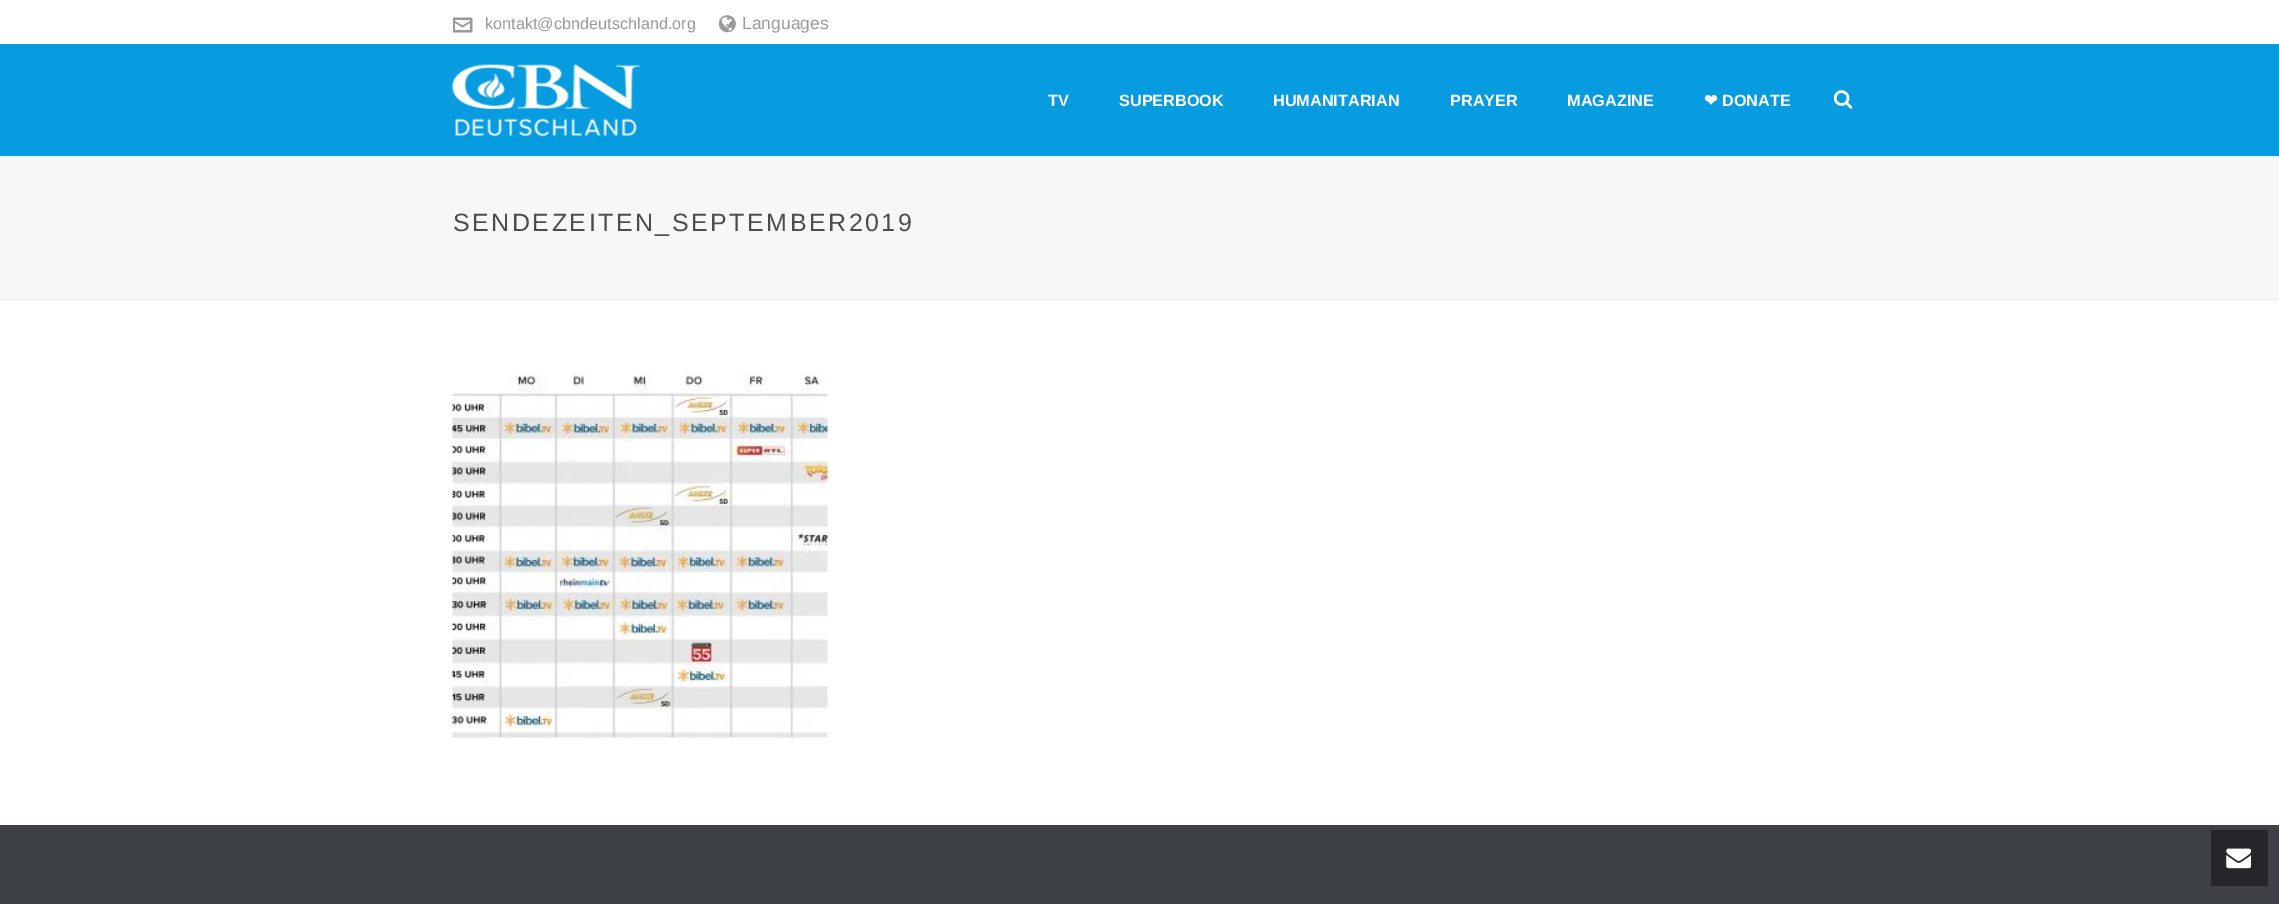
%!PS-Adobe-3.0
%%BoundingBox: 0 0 2279 904
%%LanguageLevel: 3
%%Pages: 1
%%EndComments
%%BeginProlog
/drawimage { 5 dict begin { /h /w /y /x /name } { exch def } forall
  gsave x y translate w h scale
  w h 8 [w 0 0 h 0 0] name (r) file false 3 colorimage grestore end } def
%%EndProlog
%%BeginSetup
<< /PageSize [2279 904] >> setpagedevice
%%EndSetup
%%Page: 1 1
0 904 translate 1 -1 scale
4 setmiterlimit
1 setgray
0 0 2279 904 rectfill
0.969 setgray
0 157 2279 142 rectfill
0.929 setgray
0 299 2279 1 rectfill
(images/1.raw) 453 17 20 16 drawimage
(images/2.raw) 719 15 17 18 drawimage
0 156 2279 1 rectfill
0.027 0.608 0.875 setrgbcolor
0 44 2279 112 rectfill
(images/3.raw) 452 63 189 74 drawimage
(images/4.raw) 1834 90 19 19 drawimage
(images/5.raw) 452 372 376 366 drawimage
0.239 0.251 0.271 setrgbcolor
0 825 2279 79 rectfill
0.145 0.149 0.161 setrgbcolor
2211 830 57 56 rectfill
(images/6.raw) 2226 848 25 21 drawimage
/LiberationSans-Regular [16.25 0 0 -16.25 0 0] selectfont
0.6 setgray
485 29 moveto (kontakt@cbndeutschland.org) show
/LiberationSans-Regular [17.5 0 0 -17.5 0 0] selectfont
742 29 moveto (Languages) show
/LiberationSans-Bold [16.25 0 0 -16.25 0 0] selectfont
1 setgray
1048 106 moveto (TV) show
1119 106 moveto (SUPERBOOK) show
1273 106 moveto (HUMANITARIAN) show
1450 106 moveto (PRAYER) show
1567 106 moveto (MAGAZINE) show
/DejaVuSans-Bold [16.25 0 0 -16.25 0 0] selectfont
1704 106 moveto (❤) show
/LiberationSans-Bold [16.25 0 0 -16.25 0 0] selectfont
1722 106 moveto (DONATE) show
/LiberationSans-Regular [25 0 0 -25 0 0] selectfont
0.302 setgray
453 231 moveto 2.5 0 (SENDEZEITEN_SEPTEMBER2019) ashow
showpage
%%EOF
